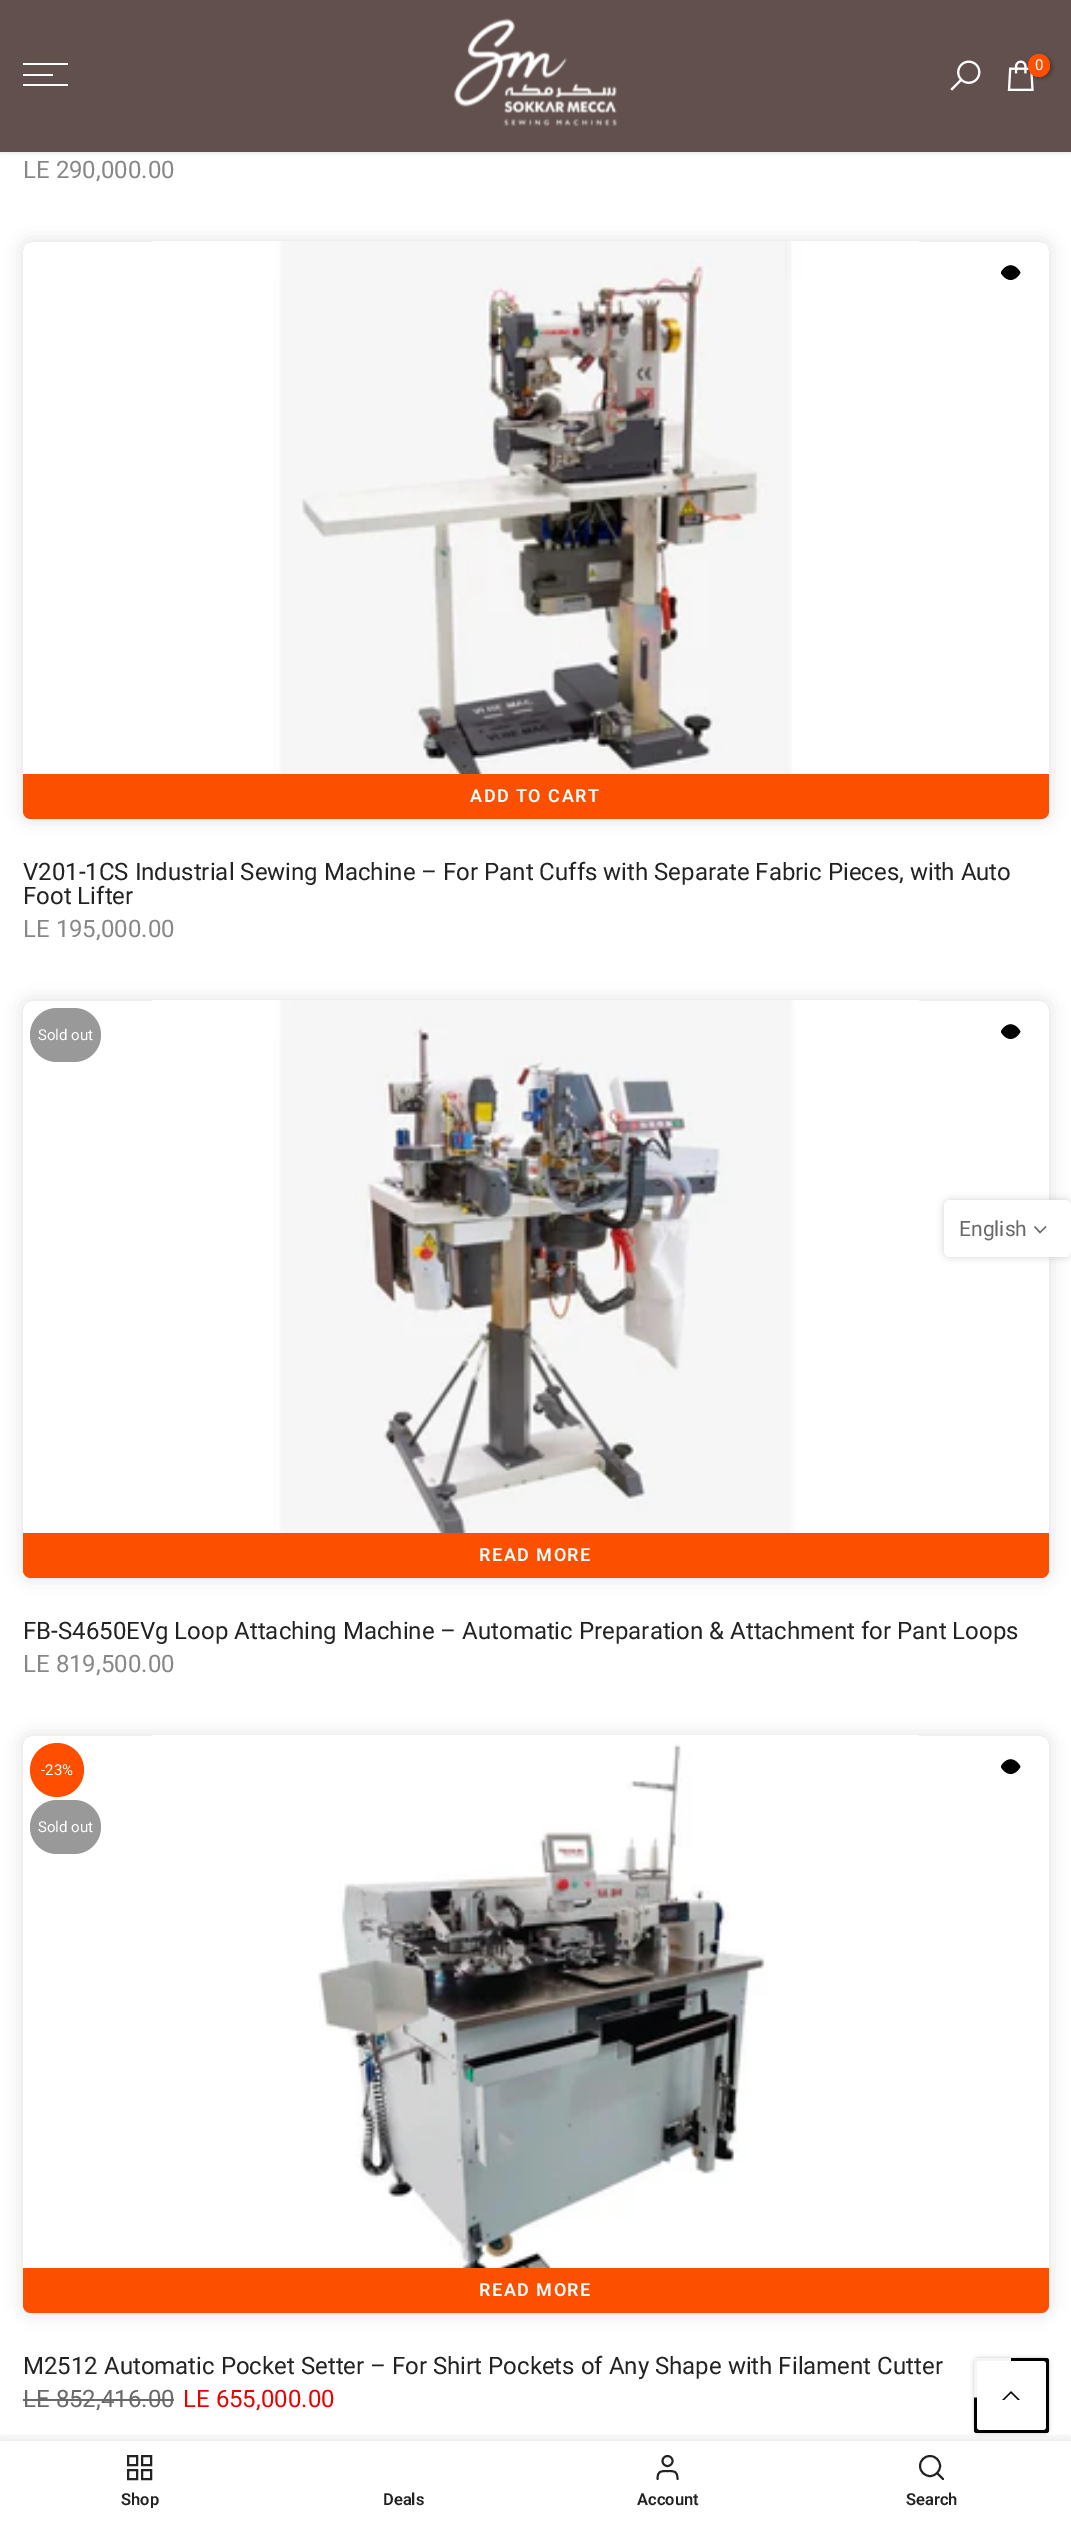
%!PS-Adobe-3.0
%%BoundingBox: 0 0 1071 2522
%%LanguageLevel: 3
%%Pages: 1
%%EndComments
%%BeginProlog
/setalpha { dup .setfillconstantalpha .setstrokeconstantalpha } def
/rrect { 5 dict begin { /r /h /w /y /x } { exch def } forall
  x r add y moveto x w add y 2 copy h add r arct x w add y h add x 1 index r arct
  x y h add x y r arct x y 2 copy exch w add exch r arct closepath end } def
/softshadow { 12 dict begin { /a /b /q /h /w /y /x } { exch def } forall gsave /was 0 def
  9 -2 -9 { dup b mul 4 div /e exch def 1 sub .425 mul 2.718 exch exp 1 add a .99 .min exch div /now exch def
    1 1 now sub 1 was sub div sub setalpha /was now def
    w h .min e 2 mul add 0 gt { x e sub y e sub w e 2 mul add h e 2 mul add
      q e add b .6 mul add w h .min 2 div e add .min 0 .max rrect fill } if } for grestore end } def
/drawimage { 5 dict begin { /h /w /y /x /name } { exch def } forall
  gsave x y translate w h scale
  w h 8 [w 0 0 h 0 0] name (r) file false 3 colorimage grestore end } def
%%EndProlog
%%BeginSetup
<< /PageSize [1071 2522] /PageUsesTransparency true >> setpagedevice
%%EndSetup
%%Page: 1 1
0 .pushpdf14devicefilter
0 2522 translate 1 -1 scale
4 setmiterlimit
1 setgray
0 0 1071 2522 rectfill
0 setgray
0 2 1071 151 0 2 0.1 softshadow
0.38 0.314 0.302 setrgbcolor
0 0 1071 152 rectfill
1 setgray
23 63 45 2 rectfill
23 74 30 2 rectfill
23 84 45 2 rectfill
(images/1.raw) 454 18 163 109 drawimage
(images/2.raw) 950 60 31 31 drawimage
(images/3.raw) 1007 60 27 31 drawimage
0 setgray
1029 56 23 22 11 2 0.3 softshadow
0.992 0.31 0 setrgbcolor
1028 54 22 23 11 rrect fill
gsave
newpath 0 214 moveto 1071 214 lineto 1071 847 lineto 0 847 lineto closepath 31 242 moveto 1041 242 lineto 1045.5 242 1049 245.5 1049 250 curveto 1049 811 lineto 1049 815.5 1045.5 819 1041 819 curveto 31 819 lineto 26.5 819 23 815.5 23 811 curveto 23 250 lineto 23 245.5 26.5 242 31 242 curveto closepath eoclip newpath
0 setgray
23 242 1026 577 8 9 0.12 softshadow
grestore
(images/4.raw) 152 241 767 533 drawimage
(images/5.raw) 1001 265 20 15 drawimage
newpath 23 774 moveto 1049 774 lineto 1049 811 lineto 1049 815.5 1045.5 819 1041 819 curveto 31 819 lineto 26.5 819 23 815.5 23 811 curveto closepath fill
gsave
newpath 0 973 moveto 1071 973 lineto 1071 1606 lineto 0 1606 lineto closepath 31 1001 moveto 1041 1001 lineto 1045.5 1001 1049 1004.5 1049 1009 curveto 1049 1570 lineto 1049 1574.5 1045.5 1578 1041 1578 curveto 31 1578 lineto 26.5 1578 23 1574.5 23 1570 curveto 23 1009 lineto 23 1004.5 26.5 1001 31 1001 curveto closepath eoclip newpath
0 setgray
23 1001 1026 577 8 9 0.12 softshadow
grestore
0.6 setgray
30 1008 71 54 27 rrect fill
(images/6.raw) 152 1000 767 533 drawimage
(images/5.raw) 1001 1024 20 15 drawimage
0.992 0.31 0 setrgbcolor
newpath 23 1533 moveto 1049 1533 lineto 1049 1570 lineto 1049 1574.5 1045.5 1578 1041 1578 curveto 31 1578 lineto 26.5 1578 23 1574.5 23 1570 curveto closepath fill
gsave
newpath 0 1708 moveto 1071 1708 lineto 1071 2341 lineto 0 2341 lineto closepath 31 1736 moveto 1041 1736 lineto 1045.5 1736 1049 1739.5 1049 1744 curveto 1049 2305 lineto 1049 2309.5 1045.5 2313 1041 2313 curveto 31 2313 lineto 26.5 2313 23 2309.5 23 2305 curveto 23 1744 lineto 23 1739.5 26.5 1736 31 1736 curveto closepath eoclip newpath
0 setgray
23 1736 1026 577 8 9 0.12 softshadow
grestore
1 0.306 0 setrgbcolor
newpath 57 1770 27 0 360 arc closepath fill
0.6 setgray
30 1800 71 54 27 rrect fill
(images/7.raw) 152 1735 767 533 drawimage
(images/5.raw) 1001 1759 20 15 drawimage
0.992 0.31 0 setrgbcolor
newpath 23 2268 moveto 1049 2268 lineto 1049 2305 lineto 1049 2309.5 1045.5 2313 1041 2313 curveto 31 2313 lineto 26.5 2313 23 2309.5 23 2305 curveto closepath fill
0.412 setgray
23 2399 151 2 rectfill
0 setgray
944 1200 127 57 6 4 0.17 softshadow
1 setgray
944 1200 127 57 6 rrect fill
0.412 setgray
1.4 setlinewidth
2 setlinecap
newpath 1045.5 1227 moveto 1040 1232.5 lineto 1035 1227 lineto stroke
0 setgray
974 2358 75 75 5 2 0.2 softshadow
gsave
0 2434 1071 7 rectclip
0 2441 1071 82 0 7 0.12 softshadow
grestore
newpath 1011 2396 moveto 974 2397 lineto 974 2430 lineto 974 2432 975 2433 977 2433 curveto 1046 2433 lineto 1048 2433 1049 2432 1049 2430 curveto 1049 2361 lineto 1049 2359 1048 2358 1046 2358 curveto 1011 2358 lineto closepath fill
0.961 setgray
newpath 1011 2396 moveto 1011 2358 lineto 977 2358 lineto 975.5 2358 974 2359.5 974 2361 curveto 974 2397.5 lineto closepath fill
1 setgray
977 2361 69 69 3 rrect fill
(images/8.raw) 1002 2391 18 9 drawimage
0.133 setgray
2 setlinewidth
0 setlinecap
128 2456 9 9 rectstroke
142 2456 9 9 rectstroke
128 2470 9 9 rectstroke
142 2470 9 9 rectstroke
1.9 setlinewidth
newpath 667.5 2461 5 0 360 arc closepath stroke
1 setlinecap
1 setlinejoin
newpath 677.5 2479 moveto 677.5 2471 674.5 2471 667.5 2471 curveto 660.5 2471 657.5 2471 657.5 2479 curveto stroke
0 setlinecap
0 setlinejoin
newpath 930 2466 10 0 360 arc closepath stroke
1 setlinecap
1 setlinejoin
newpath 943 2479 moveto 937.5 2473.5 lineto stroke
/Roboto-Regular [15 0 0 -15 0 0] selectfont
1 setgray
1035 70 moveto (0) show
/Roboto-Regular [24 0 0 -24 0 0] selectfont
0.529 setgray
23 178 moveto (LE 290,000.00) show
/Roboto-SemiBold [18 0 0 -18 0 0] selectfont
1 setgray
470 802 moveto 1.5 0 (ADD TO CART) ashow
/Roboto-Regular [24 0 0 -24 0 0] selectfont
0.133 setgray
23 880 moveto (V201-1CS Industrial Sewing Machine – For Pant Cuffs with Separate Fabric Pieces, with Auto) show
23 904 moveto (Foot Lifter) show
0.529 setgray
23 937 moveto (LE 195,000.00) show
/Roboto-Regular [15 0 0 -15 0 0] selectfont
1 setgray
38 1040 moveto (Sold out) show
/Roboto-SemiBold [18 0 0 -18 0 0] selectfont
479 1561 moveto 1.5 0 (READ MORE) ashow
/Roboto-Regular [24 0 0 -24 0 0] selectfont
0.133 setgray
23 1639 moveto (FB-S4650EVg Loop Attaching Machine – Automatic Preparation & Attachment for Pant Loops) show
0.529 setgray
23 1672 moveto (LE 819,500.00) show
/Roboto-Regular [15 0 0 -15 0 0] selectfont
1 setgray
41 1775 moveto (-23%) show
38 1832 moveto (Sold out) show
/Roboto-SemiBold [18 0 0 -18 0 0] selectfont
479 2296 moveto 1.5 0 (READ MORE) ashow
/Roboto-Regular [24 0 0 -24 0 0] selectfont
0.133 setgray
23 2374 moveto (M2512 Automatic Pocket Setter – For Shirt Pockets of Any Shape with Filament Cutter) show
0.412 setgray
23 2407 moveto (LE 852,416.00) show
0.925 0.004 0.004 setrgbcolor
183 2407 moveto (LE 655,000.00) show
/Roboto-Regular [21 0 0 -21 0 0] selectfont
0.412 setgray
959 1236 moveto (English) show
gsave
23 2492 234 16 rectclip
/Roboto-SemiBold [16.5 0 0 -16.5 0 0] selectfont
0.133 setgray
121 2505 moveto (Shop) show
grestore
/Roboto-SemiBold [16.5 0 0 -16.5 0 0] selectfont
0.133 setgray
383 2505 moveto (Deals) show
637 2505 moveto (Account) show
906 2505 moveto (Search) show
.poppdf14devicefilter showpage
%%EOF
